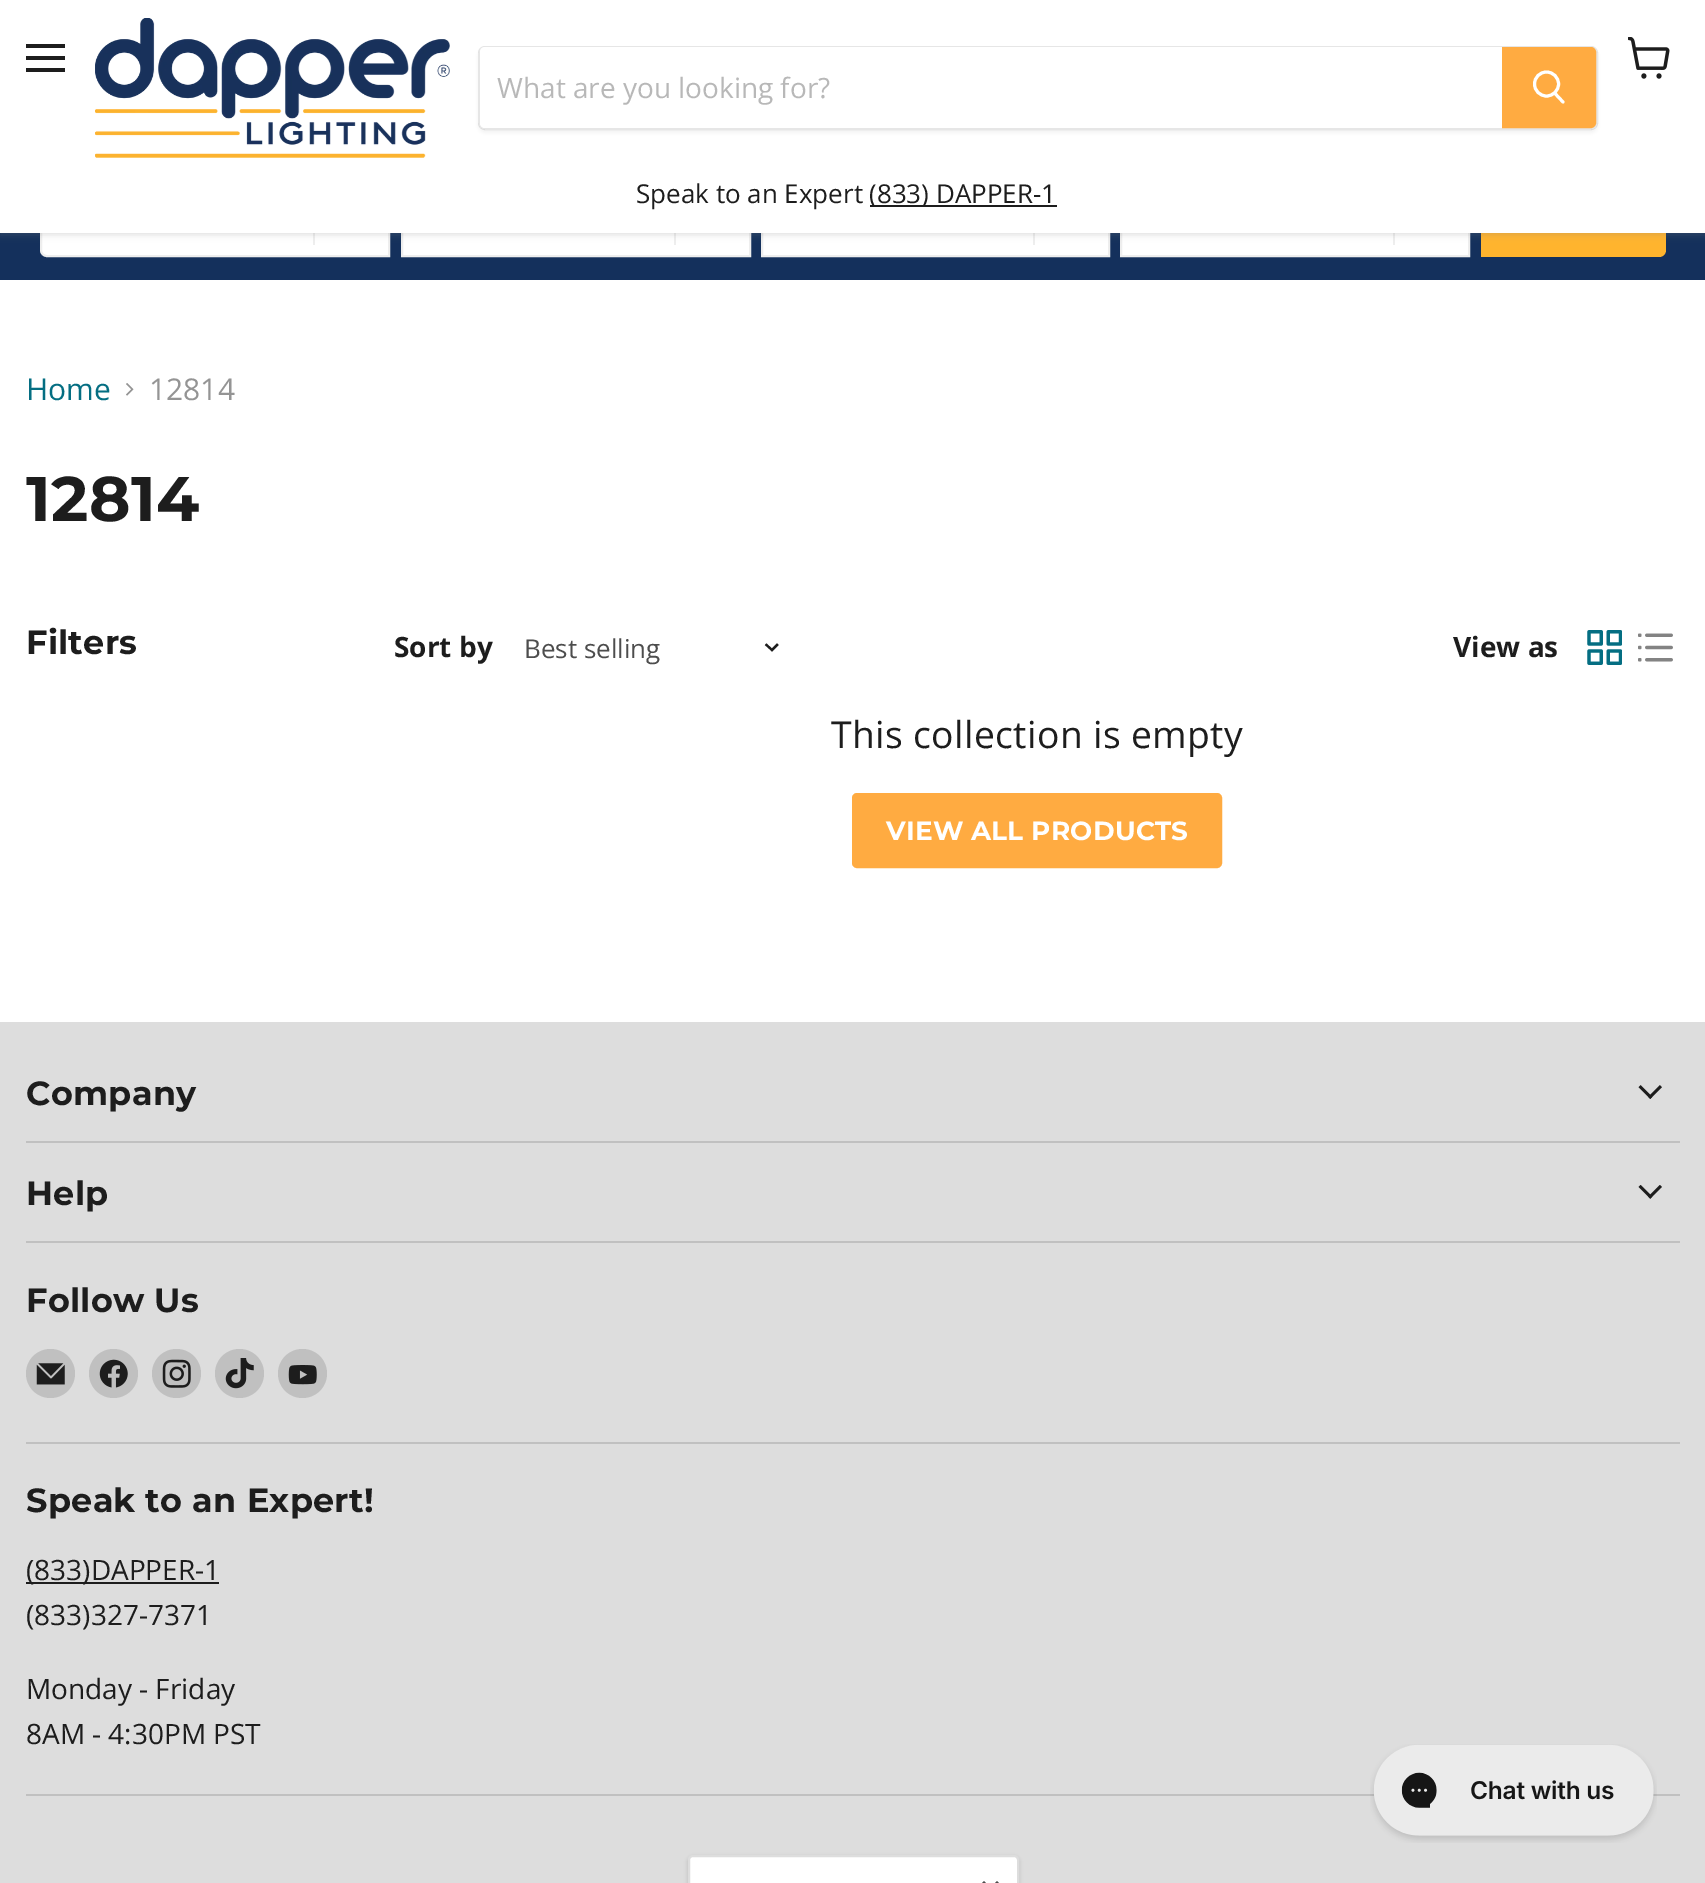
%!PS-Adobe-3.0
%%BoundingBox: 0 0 1705 1883
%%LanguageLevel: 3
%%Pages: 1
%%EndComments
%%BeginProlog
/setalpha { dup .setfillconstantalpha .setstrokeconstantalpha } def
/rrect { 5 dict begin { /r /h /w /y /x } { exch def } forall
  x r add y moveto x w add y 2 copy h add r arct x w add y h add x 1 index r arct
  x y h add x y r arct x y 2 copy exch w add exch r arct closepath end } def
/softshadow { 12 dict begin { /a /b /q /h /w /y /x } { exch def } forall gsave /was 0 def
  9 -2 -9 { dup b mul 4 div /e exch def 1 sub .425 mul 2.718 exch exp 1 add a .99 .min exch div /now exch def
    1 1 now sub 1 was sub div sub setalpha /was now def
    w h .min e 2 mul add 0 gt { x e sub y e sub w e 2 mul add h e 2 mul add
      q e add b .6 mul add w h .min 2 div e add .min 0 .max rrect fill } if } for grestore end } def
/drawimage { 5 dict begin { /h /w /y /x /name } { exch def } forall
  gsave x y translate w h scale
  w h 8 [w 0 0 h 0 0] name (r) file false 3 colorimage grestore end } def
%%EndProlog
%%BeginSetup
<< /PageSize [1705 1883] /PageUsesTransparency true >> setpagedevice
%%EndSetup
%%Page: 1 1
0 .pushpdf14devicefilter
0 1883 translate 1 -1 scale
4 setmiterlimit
1 setgray
0 0 1705 1883 rectfill
0.078 0.188 0.361 setrgbcolor
0 233 1705 47 rectfill
1 setgray
newpath 47 185 moveto 389 185 lineto 389 256 lineto 47 256 lineto 43.5 256 41 253.5 41 250 curveto 41 191 lineto 41 187.5 43.5 185 47 185 curveto closepath gsave fill grestore
0.933 setgray
2 setlinewidth
stroke
313 233 2 12 rectfill
1 setgray
403 233 346 22 rectfill
0.933 setgray
402 185 348 71 rectstroke
674 233 2 12 rectfill
1 setgray
763 233 345 22 rectfill
0.933 setgray
762 185 347 71 rectstroke
1033 233 2 12 rectfill
1 setgray
1122 233 346 22 rectfill
0.933 setgray
1121 185 348 71 rectstroke
1393 233 2 12 rectfill
1 0.706 0.18 setrgbcolor
newpath 1481 184 moveto 1659 184 lineto 1663 184 1666 187 1666 191 curveto 1666 250 lineto 1666 254 1663 257 1659 257 curveto 1481 257 lineto closepath fill
0.502 setgray
0 2 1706 233 0 3.5 0.25 softshadow
1 setgray
0 0 1705 233 rectfill
0.114 setgray
26 44 39 4 rectfill
26 56 39 4 rectfill
26 68 39 4 rectfill
(images/1.raw) 1628 37 42 42 drawimage
(images/2.raw) 95 18 355 140 drawimage
gsave
newpath 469 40 moveto 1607 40 lineto 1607 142 lineto 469 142 lineto closepath 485 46 moveto 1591 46 lineto 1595 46 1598 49 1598 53 curveto 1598 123 lineto 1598 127 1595 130 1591 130 curveto 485 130 lineto 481 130 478 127 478 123 curveto 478 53 lineto 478 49 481 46 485 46 curveto closepath eoclip newpath
0.502 setgray
478 49 1120 84 7 2.5 0.11 softshadow
grestore
0.2 setalpha
0.502 setgray
479 47 1118 82 6 rrect stroke
1 setalpha
1 setgray
newpath 485 47 moveto 1502 47 lineto 1502 128 lineto 485 128 lineto 482 128 480 126 480 123 curveto 480 52 lineto 480 49 482 47 485 47 curveto closepath fill
1 0.671 0.255 setrgbcolor
newpath 1503 48 moveto 1591 48 lineto 1593 48 1595 50 1595 52 curveto 1595 123 lineto 1595 125 1593 127 1591 127 curveto 1503 127 lineto closepath gsave fill grestore
stroke
1 setgray
3 setlinewidth
1 setlinecap
newpath 1563 102 moveto 1555 93.5 lineto stroke
0 setlinecap
newpath 1546.5 84 12 0 360 arc closepath stroke
0.114 setgray
870 205 187 2 rectfill
(images/3.raw) 126 383 8 13 drawimage
2.2 setlinewidth
2 setlinecap
newpath 772 650 moveto 777 645 lineto 772 650 moveto 766.5 645 lineto stroke
(images/4.raw) 1587 630 35 35 drawimage
(images/5.raw) 1638 633 35 29 drawimage
1 0.671 0.255 setrgbcolor
853 794 368 73 4 rrect gsave fill grestore
2 setlinewidth
0 setlinecap
stroke
0.867 setgray
0 1022 1705 861 rectfill
0.753 setgray
26 1141 1654 2 rectfill
(images/6.raw) 1638 1085 24 14 drawimage
26 1241 1654 2 rectfill
(images/7.raw) 1638 1185 24 14 drawimage
26 1442 1654 2 rectfill
newpath 50.5 1373.5 24.5 0 360 arc closepath fill
(images/8.raw) 36 1363 29 22 drawimage
newpath 113.5 1373.5 24.5 0 360 arc closepath fill
(images/9.raw) 99 1359 29 29 drawimage
newpath 176.5 1373.5 24.5 0 360 arc closepath fill
(images/10.raw) 162 1359 29 29 drawimage
newpath 239.5 1373.5 24.5 0 360 arc closepath fill
(images/11.raw) 225 1358 29 31 drawimage
newpath 302.5 1373.5 24.5 0 360 arc closepath fill
(images/12.raw) 288 1365 29 20 drawimage
26 1794 1654 2 rectfill
0.114 setgray
26 1582 193 2 rectfill
0 setgray
688 1857 331 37 5 2 0.15 softshadow
1 setgray
689 1856 329 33 4 rrect gsave fill grestore
0.867 setgray
stroke
0.302 setgray
2.7 setlinewidth
2 setlinecap
newpath 990.5 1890 moveto 997 1883 lineto 990.5 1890 moveto 984 1883 lineto stroke
(images/13.raw) 1370 1744 287 99 drawimage
/OpenSans-Regular [28 0 0 -28 0 0] selectfont
0.722 setgray
497 98 moveto (What are you looking for?) show
/OpenSans-Regular [26 0 0 -26 0 0] selectfont
0.114 setgray
636 203 moveto (Speak to an Expert) show
869 203 moveto (\(833\) DAPPER-1) show
/OpenSans-Regular [30 0 0 -30 0 0] selectfont
0.016 0.431 0.51 setrgbcolor
26 400 moveto (Home) show
0.58 setgray
149 400 moveto (12814) show
/Montserrat-Bold [63 0 0 -63 0 0] selectfont
0.114 setgray
26 521 moveto 0.5 0 (12814) ashow
/Montserrat-Bold [33.5 0 0 -33.5 0 0] selectfont
26 654 moveto 0.3 0 (Filters) ashow
/OpenSans-Bold [28 0 0 -28 0 0] selectfont
394 657 moveto (Sort by) show
/OpenSans-Regular [26 0 0 -26 0 0] selectfont
0.302 setgray
524 658 moveto (Best selling) show
/OpenSans-Bold [28 0 0 -28 0 0] selectfont
0.114 setgray
1453 657 moveto (View as) show
/OpenSans-Regular [37.25 0 0 -37.25 0 0] selectfont
831 748 moveto 0.4 0 (This collection is empty) ashow
/Montserrat-Bold [26.25 0 0 -26.25 0 0] selectfont
1 setgray
886 840 moveto 0.25 0 (VIEW ALL PRODUCTS) ashow
/Montserrat-Bold [33.5 0 0 -33.5 0 0] selectfont
0.114 setgray
26 1105 moveto 0.3 0 (Company) ashow
26 1205 moveto 0.3 0 (Help) ashow
26 1312 moveto 0.3 0 (Follow Us) ashow
26 1512 moveto 0.3 0 (Speak to an Expert!) ashow
/OpenSans-Regular [28 0 0 -28 0 0] selectfont
26 1580 moveto (\(833\)DAPPER-1) show
26 1625 moveto (\(833\)327-7371) show
26 1699 moveto (Monday - Friday) show
26 1744 moveto (8AM - 4:30PM PST) show
.poppdf14devicefilter showpage
%%EOF
